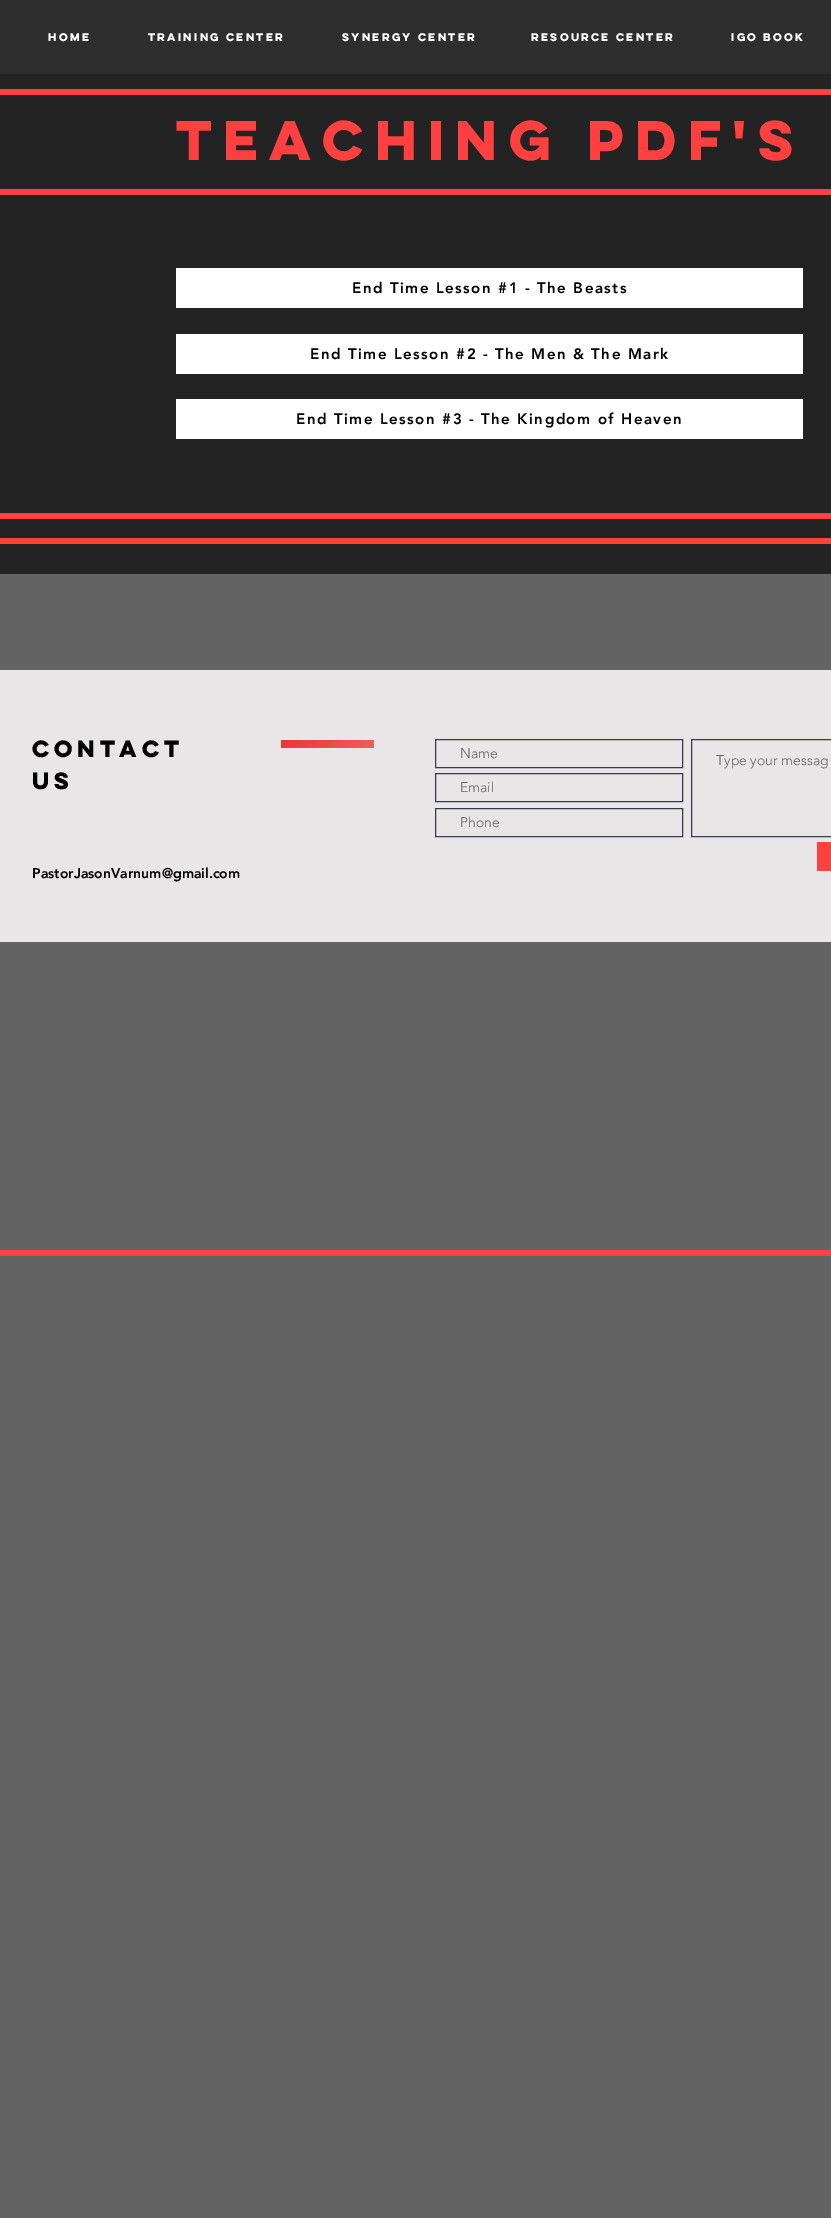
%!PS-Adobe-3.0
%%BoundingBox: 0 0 831 2218
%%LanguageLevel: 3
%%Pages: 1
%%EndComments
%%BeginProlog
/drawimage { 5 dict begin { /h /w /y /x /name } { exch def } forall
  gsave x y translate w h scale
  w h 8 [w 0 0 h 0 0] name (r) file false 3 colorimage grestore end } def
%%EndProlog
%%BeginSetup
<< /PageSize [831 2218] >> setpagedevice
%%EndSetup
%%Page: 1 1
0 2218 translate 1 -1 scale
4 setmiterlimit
0.388 setgray
0 0 831 2218 rectfill
0.184 0.18 0.18 setrgbcolor
0 0 831 74 rectfill
0.137 setgray
0 74 831 500 rectfill
1 0.251 0.251 setrgbcolor
0 89 831 6 rectfill
0 189 831 6 rectfill
1 setgray
176 268 627 40 rectfill
176 334 627 40 rectfill
176 399 627 40 rectfill
1 0.251 0.251 setrgbcolor
0 513 831 6 rectfill
0 538 831 6 rectfill
0.91 0.902 0.902 setrgbcolor
0 670 831 272 rectfill
(images/1.raw) 281 740 93 8 drawimage
0.216 0.231 0.302 setrgbcolor
435.5 739.5 247 28 rectstroke
691.5 739.5 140 97 rectstroke
435.5 773.5 247 28 rectstroke
435.5 808.5 247 28 rectstroke
1 0.251 0.251 setrgbcolor
817 842 14 29 rectfill
0 1250 831 6 rectfill
/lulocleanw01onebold-Bold [10 0 0 -10 0 0] selectfont
1 setgray
48 41 moveto (HOME) show
148 41 moveto (Training Center) show
342 41 moveto (Synergy Center) show
531 41 moveto (Resource Center) show
731 41 moveto (iGo Book) show
/lulocleanw01onebold-Bold [50 0 0 -50 0 0] selectfont
1 0.251 0.251 setrgbcolor
176 160 moveto (TEACHING PDF's) show
/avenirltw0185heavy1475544-Black [15 0 0 -15 0 0] selectfont
0 setgray
352 293 moveto 1.5 0 (End Time Lesson #1 - The Beasts) ashow
310 359 moveto 1.5 0 (End Time Lesson #2 - The Men & The Mark) ashow
296 424 moveto 1.5 0 (End Time Lesson #3 - The Kingdom of Heaven) ashow
/lulocleanw01onebold-Bold [21 0 0 -21 0 0] selectfont
32 757 moveto (COntact) show
32 789 moveto (us) show
/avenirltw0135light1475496-Light [14 0 0 -14 0 0] selectfont
0.388 setgray
460 758 moveto (Name) show
716 765 moveto (Type your messag) show
460 792 moveto (Email) show
460 827 moveto (Phone) show
/avenirltw0185heavy1475544-Black [14 0 0 -14 0 0] selectfont
0 setgray
32 878 moveto (PastorJasonVarnum@gmail.com) show
showpage
%%EOF
